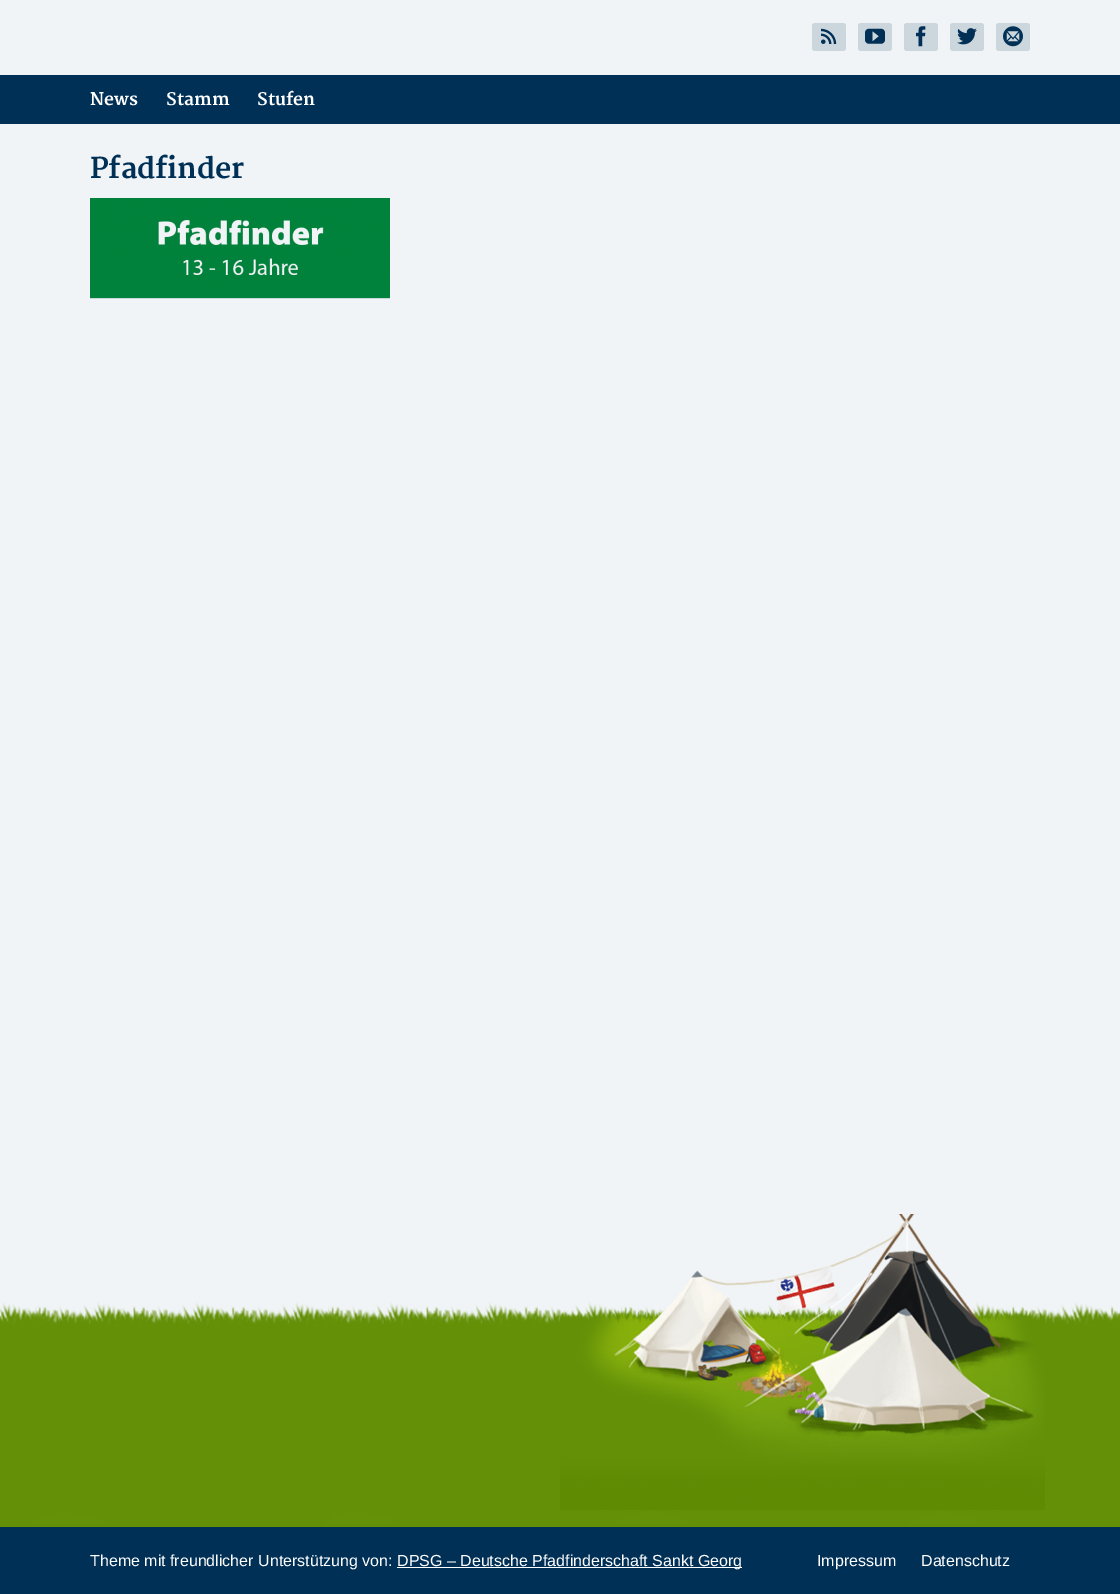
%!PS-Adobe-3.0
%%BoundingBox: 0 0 1120 1594
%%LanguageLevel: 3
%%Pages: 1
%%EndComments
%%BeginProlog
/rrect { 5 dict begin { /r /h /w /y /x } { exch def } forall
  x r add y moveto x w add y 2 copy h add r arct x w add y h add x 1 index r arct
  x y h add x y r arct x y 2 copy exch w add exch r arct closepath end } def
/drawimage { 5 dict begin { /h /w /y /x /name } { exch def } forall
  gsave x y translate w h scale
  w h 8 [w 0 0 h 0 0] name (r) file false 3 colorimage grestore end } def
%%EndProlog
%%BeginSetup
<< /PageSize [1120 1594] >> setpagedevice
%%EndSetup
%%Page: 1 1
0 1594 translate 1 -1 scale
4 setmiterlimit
0.941 0.957 0.965 setrgbcolor
0 0 1120 1594 rectfill
0.8 0.839 0.867 setrgbcolor
812 23 34 28 3 rrect fill
(images/1.raw) 821 28 16 16 drawimage
858 23 34 28 3 rrect fill
(images/2.raw) 865 28 20 16 drawimage
904 23 34 28 3 rrect fill
(images/3.raw) 916 26 10 21 drawimage
950 23 34 28 3 rrect fill
(images/4.raw) 957 28 20 17 drawimage
996 23 34 28 3 rrect fill
(images/5.raw) 1003 26 20 21 drawimage
0 0.188 0.337 setrgbcolor
0 75 1120 49 rectfill
(images/6.raw) 90 198 300 100 drawimage
0.8 0.839 0.867 setrgbcolor
90 298 300 1 rectfill
(images/7.raw) 0 1297 1120 230 drawimage
(images/8.raw) 560 1214 485 296 drawimage
0 0.188 0.337 setrgbcolor
0 1527 1120 67 rectfill
1 setgray
397 1567 345 1 rectfill
/Merriweather-Bold [17 0 0 -17 0 0] selectfont
90 105 moveto (News) show
166 105 moveto (Stamm) show
257 105 moveto (Stufen) show
/Merriweather-Bold [28 0 0 -28 0 0] selectfont
0 0.188 0.337 setrgbcolor
90 178 moveto (Pfadfinder) show
/LiberationSans-Regular [16 0 0 -16 0 0] selectfont
1 setgray
90 1566 moveto (Theme mit freundlicher Unterstützung von:) show
397 1566 moveto (DPSG – Deutsche Pfadfinderschaft Sankt Georg) show
817 1566 moveto (Impressum) show
921 1566 moveto (Datenschutz) show
showpage
%%EOF
